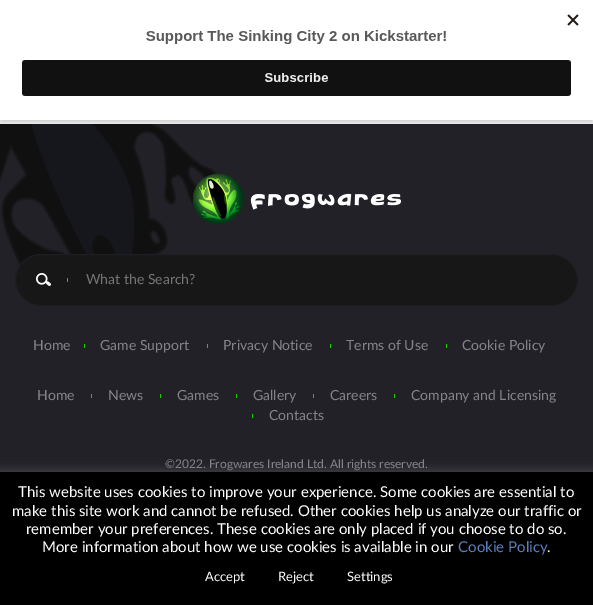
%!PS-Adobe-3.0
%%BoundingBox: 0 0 593 605
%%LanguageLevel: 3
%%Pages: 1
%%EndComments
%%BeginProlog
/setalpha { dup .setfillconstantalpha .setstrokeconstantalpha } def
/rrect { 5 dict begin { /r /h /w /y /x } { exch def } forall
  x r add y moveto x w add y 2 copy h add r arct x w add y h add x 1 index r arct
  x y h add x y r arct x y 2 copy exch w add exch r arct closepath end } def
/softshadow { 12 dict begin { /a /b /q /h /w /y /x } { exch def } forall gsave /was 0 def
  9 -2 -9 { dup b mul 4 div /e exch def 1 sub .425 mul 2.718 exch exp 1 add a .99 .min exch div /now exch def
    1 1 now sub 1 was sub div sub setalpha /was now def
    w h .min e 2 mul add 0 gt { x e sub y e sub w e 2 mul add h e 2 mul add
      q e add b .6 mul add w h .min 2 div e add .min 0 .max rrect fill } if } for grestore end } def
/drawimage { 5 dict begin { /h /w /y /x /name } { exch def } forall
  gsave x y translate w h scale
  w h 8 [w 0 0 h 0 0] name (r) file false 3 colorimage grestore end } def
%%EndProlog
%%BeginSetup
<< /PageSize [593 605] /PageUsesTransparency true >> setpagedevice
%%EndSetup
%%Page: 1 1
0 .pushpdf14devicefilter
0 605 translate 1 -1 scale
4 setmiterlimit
1 setgray
0 0 593 605 rectfill
0.129 0.129 0.153 setrgbcolor
0 124 593 348 rectfill
(images/2.raw) 0 124 216 143 drawimage
0 setgray
0 3 593 120 0 3 0.2 softshadow
1 setgray
0 0 593 120 rectfill
(images/1.raw) 22 14 557 82 drawimage
(images/3.raw) 193 174 208 50 drawimage
0.09 0.09 0.094 setrgbcolor
15.5 254.5 562 51 25.5 rrect gsave fill grestore
0.114 0.114 0.133 setrgbcolor
stroke
(images/4.raw) 36 273 15 13 drawimage
0.118 0.812 0 setrgbcolor
67 278 1 4 rectfill
84 344 1 4 rectfill
207 344 1 4 rectfill
330 344 1 4 rectfill
446 344 1 4 rectfill
91 394 1 4 rectfill
160 394 1 4 rectfill
236 394 1 4 rectfill
313 394 1 4 rectfill
394 394 1 4 rectfill
252 414 1 4 rectfill
0.675 0.671 0.671 setrgbcolor
0 471 593 133 0 5 0.3 softshadow
0 setgray
0 472 593 133 rectfill
/Lato-Regular [14 0 0 -14 0 0] selectfont
0.459 setgray
86 284 moveto (What the Search?) show
0.514 0.514 0.533 setrgbcolor
33 350 moveto (Home) show
100 350 moveto (Game Support) show
223 350 moveto (Privacy Notice) show
346 350 moveto (Terms of Use) show
462 350 moveto (Cookie Policy) show
37 400 moveto (Home) show
108 400 moveto (News) show
177 400 moveto (Games) show
253 400 moveto (Gallery) show
330 400 moveto (Careers) show
411 400 moveto (Company and Licensing) show
269 420 moveto (Contacts) show
/Lato-Regular [12 0 0 -12 0 0] selectfont
165 468 moveto (©2022. Frogwares Ireland Ltd. All rights reserved.) show
/Lato-Regular [15 0 0 -15 0 0] selectfont
1 setgray
18 497 moveto (This website uses cookies to improve your experience. Some cookies are essential to) show
12 516 moveto (make this site work and cannot be refused. Other cookies help us analyze our traffic or) show
26 534 moveto (remember your preferences. These cookies are only placed if you choose to do so.) show
42 552 moveto (More information about how we use cookies is available in our) show
0.357 0.494 0.729 setrgbcolor
458 552 moveto (Cookie Policy) show
1 setgray
547 552 moveto (.) show
/Lato-Regular [13 0 0 -13 0 0] selectfont
205 581 moveto (Accept) show
278 581 moveto (Reject) show
347 581 moveto (Settings) show
.poppdf14devicefilter showpage
%%EOF
